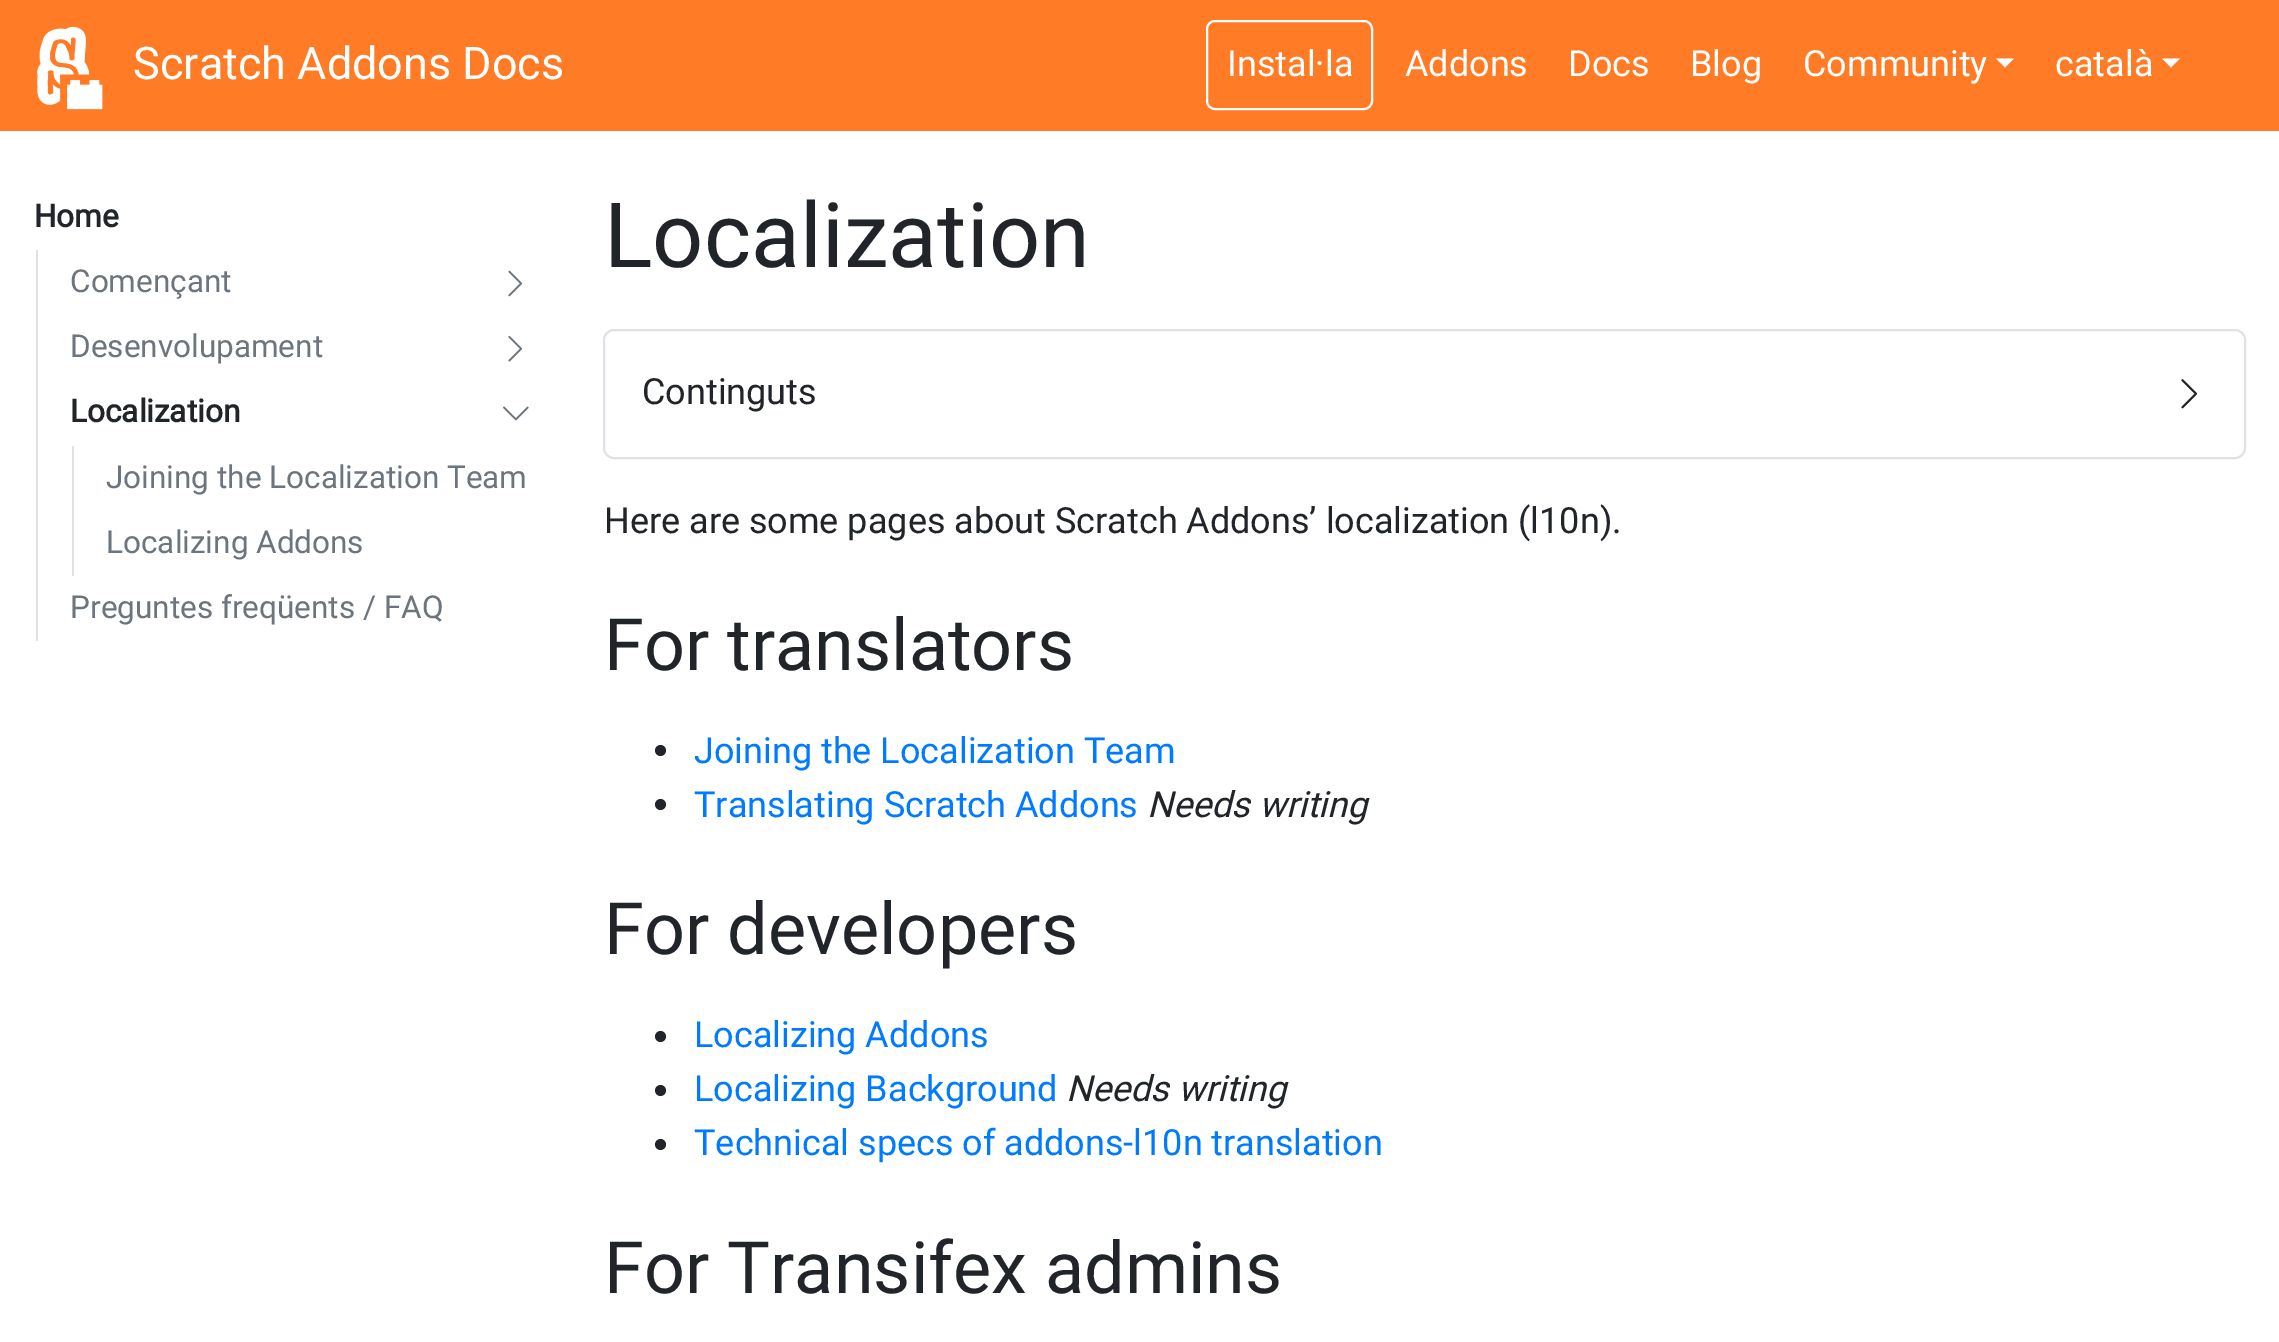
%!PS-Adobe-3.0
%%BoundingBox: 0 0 2279 1342
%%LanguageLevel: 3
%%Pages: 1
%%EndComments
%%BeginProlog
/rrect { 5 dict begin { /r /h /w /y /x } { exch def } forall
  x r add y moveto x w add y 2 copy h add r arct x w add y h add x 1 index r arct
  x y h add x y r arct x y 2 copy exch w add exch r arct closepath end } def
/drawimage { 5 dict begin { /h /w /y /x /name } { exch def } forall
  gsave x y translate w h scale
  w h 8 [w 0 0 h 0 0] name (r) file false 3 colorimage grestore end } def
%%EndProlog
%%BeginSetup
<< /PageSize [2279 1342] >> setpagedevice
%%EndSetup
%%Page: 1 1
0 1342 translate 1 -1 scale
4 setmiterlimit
1 setgray
0 0 2279 1342 rectfill
1 0.482 0.149 setrgbcolor
0 0 2279 131 rectfill
(images/1.raw) 37 26 66 84 drawimage
1 setgray
2 setlinewidth
1207 21 165 88 8 rrect stroke
newpath 1996 58.5 moveto 2014 58.5 lineto 2005 67.5 lineto closepath fill
newpath 2162 58.5 moveto 2180 58.5 lineto 2171 67.5 lineto closepath fill
0.871 0.886 0.902 setrgbcolor
36 250 2 391 rectfill
(images/2.raw) 508 270 15 27 drawimage
(images/3.raw) 508 336 15 26 drawimage
(images/4.raw) 503 406 26 15 drawimage
72 446 2 130 rectfill
604 330 1641 128 10 rrect stroke
(images/5.raw) 2181 379 17 30 drawimage
0.129 0.145 0.161 setrgbcolor
newpath 660.5 750.5 5.5 0 360 arc closepath fill
newpath 660.5 804.5 5.5 0 360 arc closepath fill
newpath 660.5 1036.5 5.5 0 360 arc closepath fill
newpath 660.5 1090.5 5.5 0 360 arc closepath fill
newpath 660.5 1144.5 5.5 0 360 arc closepath fill
/Roboto-Regular [45 0 0 -45 0 0] selectfont
1 setgray
133 79 moveto (Scratch Addons Docs) show
/Roboto-Regular [36 0 0 -36 0 0] selectfont
1227 76 moveto (Instal·la) show
1405 76 moveto (Addons) show
1568 76 moveto (Docs) show
1690 76 moveto (Blog) show
1803 76 moveto (Community) show
2055 76 moveto (català) show
/Roboto-Bold [31.5 0 0 -31.5 0 0] selectfont
0.129 0.145 0.161 setrgbcolor
34 227 moveto (Home) show
/Roboto-Regular [31.5 0 0 -31.5 0 0] selectfont
0.424 0.459 0.49 setrgbcolor
70 292 moveto (Començant) show
70 357 moveto (Desenvolupament) show
/Roboto-Bold [31.5 0 0 -31.5 0 0] selectfont
0.129 0.145 0.161 setrgbcolor
70 422 moveto (Localization) show
/Roboto-Regular [31.5 0 0 -31.5 0 0] selectfont
0.424 0.459 0.49 setrgbcolor
106 488 moveto (Joining the Localization Team) show
106 553 moveto (Localizing Addons) show
70 618 moveto (Preguntes freqüents / FAQ) show
/Roboto-Regular [90 0 0 -90 0 0] selectfont
0.129 0.145 0.161 setrgbcolor
604 267 moveto (Localization) show
/Roboto-Regular [36 0 0 -36 0 0] selectfont
642 404 moveto (Continguts) show
604 533 moveto (Here are some pages about Scratch Addons’ localization \(l10n\).) show
/Roboto-Regular [72 0 0 -72 0 0] selectfont
604 670 moveto (For translators) show
/Roboto-Regular [36 0 0 -36 0 0] selectfont
0 0.482 1 setrgbcolor
694 763 moveto (Joining the Localization Team) show
694 817 moveto (Translating Scratch Addons) show
/Roboto-Italic [36 0 0 -36 0 0] selectfont
0.129 0.145 0.161 setrgbcolor
1147 817 moveto (Needs writing) show
/Roboto-Regular [72 0 0 -72 0 0] selectfont
604 954 moveto (For developers) show
/Roboto-Regular [36 0 0 -36 0 0] selectfont
0 0.482 1 setrgbcolor
694 1047 moveto (Localizing Addons) show
694 1101 moveto (Localizing Background) show
/Roboto-Italic [36 0 0 -36 0 0] selectfont
0.129 0.145 0.161 setrgbcolor
1066 1101 moveto (Needs writing) show
/Roboto-Regular [36 0 0 -36 0 0] selectfont
0 0.482 1 setrgbcolor
694 1155 moveto (Technical specs of addons-l10n translation) show
/Roboto-Regular [72 0 0 -72 0 0] selectfont
0.129 0.145 0.161 setrgbcolor
604 1293 moveto (For Transifex admins) show
showpage
%%EOF
